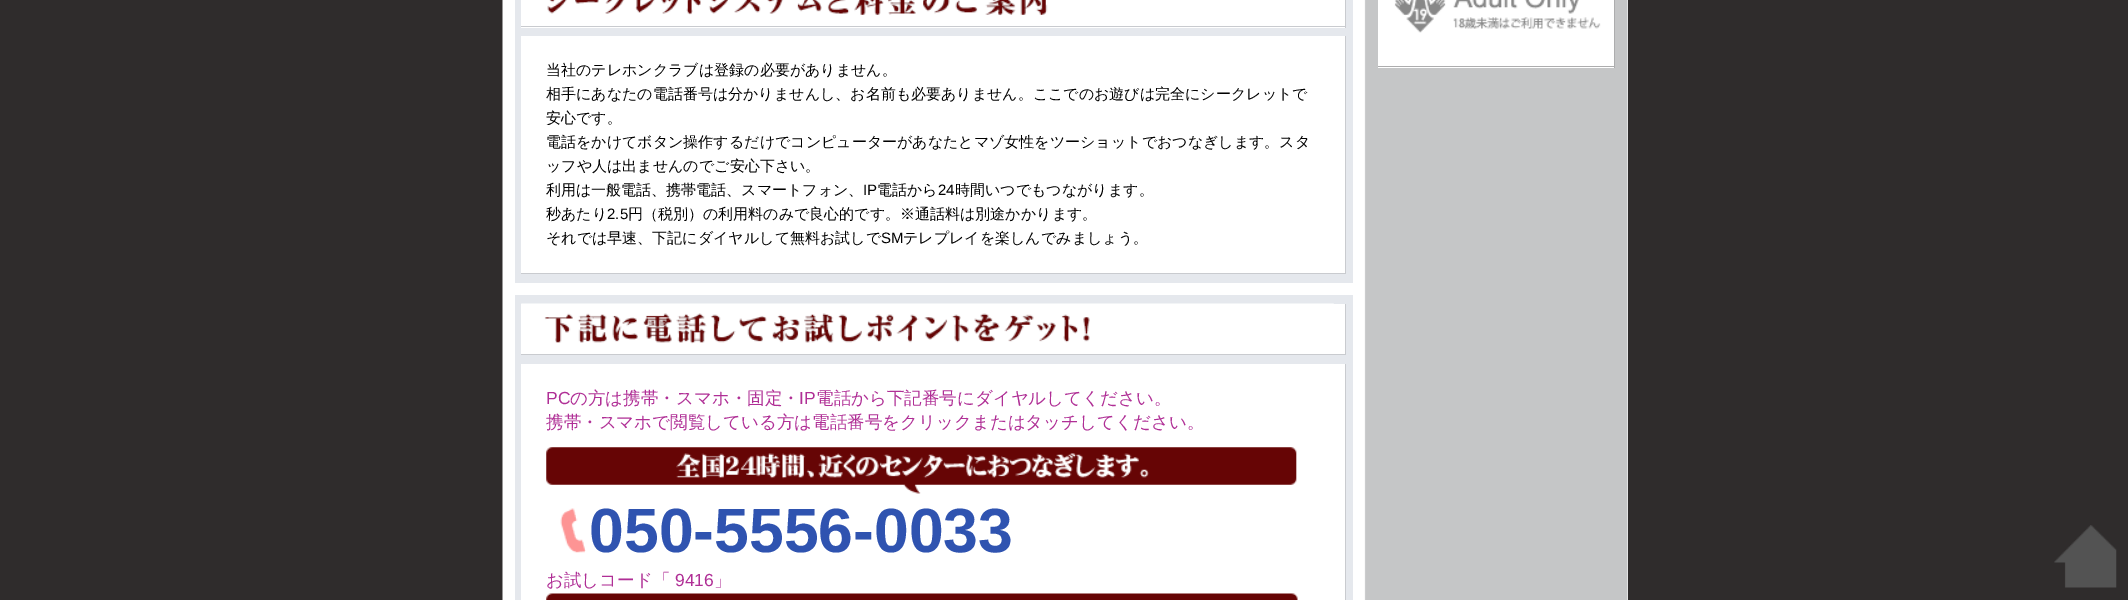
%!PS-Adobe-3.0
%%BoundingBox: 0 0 2128 600
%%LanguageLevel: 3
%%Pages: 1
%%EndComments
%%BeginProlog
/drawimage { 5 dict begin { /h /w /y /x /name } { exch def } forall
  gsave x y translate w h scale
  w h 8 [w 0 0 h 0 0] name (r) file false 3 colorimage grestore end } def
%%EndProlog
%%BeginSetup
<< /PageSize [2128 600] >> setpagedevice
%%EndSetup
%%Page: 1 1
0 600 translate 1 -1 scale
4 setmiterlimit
0.184 0.173 0.173 setrgbcolor
0 0 2128 600 rectfill
1 setgray
1627 0 1 600 rectfill
(images/1.raw) 502 0 1126 600 drawimage
1378 0 236 68 rectfill
(images/2.raw) 1394 0 207 33 drawimage
0.678 0.678 0.682 setrgbcolor
1614 0 1 68 rectfill
1378 66 237 1 rectfill
0.898 0.91 0.929 setrgbcolor
515 0 838 283 rectfill
1 setgray
521 0 824 28 rectfill
(images/3.raw) 547 0 501 16 drawimage
0.788 0.796 0.812 setrgbcolor
1345 0 1 28 rectfill
521 26 825 1 rectfill
1 setgray
521 36 824 237 rectfill
0.788 0.796 0.812 setrgbcolor
1345 36 1 238 rectfill
521 273 825 1 rectfill
0.898 0.91 0.929 setrgbcolor
515 295 838 305 rectfill
1 setgray
521 304 824 50 rectfill
(images/4.raw) 521 303 813 41 drawimage
0.788 0.796 0.812 setrgbcolor
1345 304 1 51 rectfill
521 354 825 1 rectfill
1 setgray
521 364 824 236 rectfill
0.788 0.796 0.812 setrgbcolor
1345 364 1 236 rectfill
(images/5.raw) 546 447 751 47 drawimage
(images/6.raw) 560 508 26 45 drawimage
(images/7.raw) 546 593 752 7 drawimage
(images/8.raw) 2054 525 63 63 drawimage
/WenQuanYiZenHei-Medium [15 0 0 -15 0 0] selectfont
0 setgray
546 75 moveto (当社のテレホンクラブは登録の必要がありません。) show
546 99 moveto (相手にあなたの電話番号は分かりませんし、お名前も必要ありません。ここでのお遊びは完全にシークレットで) show
546 123 moveto (安心です。) show
546 147 moveto (電話をかけてボタン操作するだけでコンピューターがあなたとマゾ女性をツーショットでおつなぎします。スタ) show
546 171 moveto (ッフや人は出ませんのでご安心下さい。) show
546 195 moveto (利用は一般電話、携帯電話、スマートフォン、) show
/LiberationSans-Regular [15 0 0 -15 0 0] selectfont
863 195 moveto (IP) show
/WenQuanYiZenHei-Medium [15 0 0 -15 0 0] selectfont
877 195 moveto (電話から) show
/LiberationSans-Regular [15 0 0 -15 0 0] selectfont
938 195 moveto (24) show
/WenQuanYiZenHei-Medium [15 0 0 -15 0 0] selectfont
955 195 moveto (時間いつでもつながります。) show
546 219 moveto (秒あたり) show
/LiberationSans-Regular [15 0 0 -15 0 0] selectfont
607 219 moveto (2.5) show
/WenQuanYiZenHei-Medium [15 0 0 -15 0 0] selectfont
628 219 moveto (円（税別）の利用料のみで良心的です。※通話料は別途かかります。) show
546 243 moveto (それでは早速、下記にダイヤルして無料お試しで) show
/LiberationSans-Regular [15 0 0 -15 0 0] selectfont
881 243 moveto (SM) show
/WenQuanYiZenHei-Medium [15 0 0 -15 0 0] selectfont
903 243 moveto (テレプレイを楽しんでみましょう。) show
/LiberationSans-Regular [17.5 0 0 -17.5 0 0] selectfont
0.69 0.184 0.588 setrgbcolor
546 404 moveto (PC) show
/WenQuanYiZenHei-Medium [17.5 0 0 -17.5 0 0] selectfont
570 404 moveto (の方は携帯・スマホ・固定・) show
/LiberationSans-Regular [17.5 0 0 -17.5 0 0] selectfont
799 404 moveto (IP) show
/WenQuanYiZenHei-Medium [17.5 0 0 -17.5 0 0] selectfont
816 404 moveto (電話から下記番号にダイヤルしてください。) show
546 428 moveto (携帯・スマホで閲覧している方は電話番号をクリックまたはタッチしてください。) show
/LiberationSans-Bold [62.5 0 0 -62.5 0 0] selectfont
0.184 0.325 0.69 setrgbcolor
589 552 moveto (050-5556-0033) show
/WenQuanYiZenHei-Medium [17.5 0 0 -17.5 0 0] selectfont
0.69 0.184 0.588 setrgbcolor
546 586 moveto (お試しコード「) show
/LiberationSans-Regular [17.5 0 0 -17.5 0 0] selectfont
675 586 moveto (9416) show
/WenQuanYiZenHei-Medium [17.5 0 0 -17.5 0 0] selectfont
714 586 moveto (」) show
showpage
%%EOF
